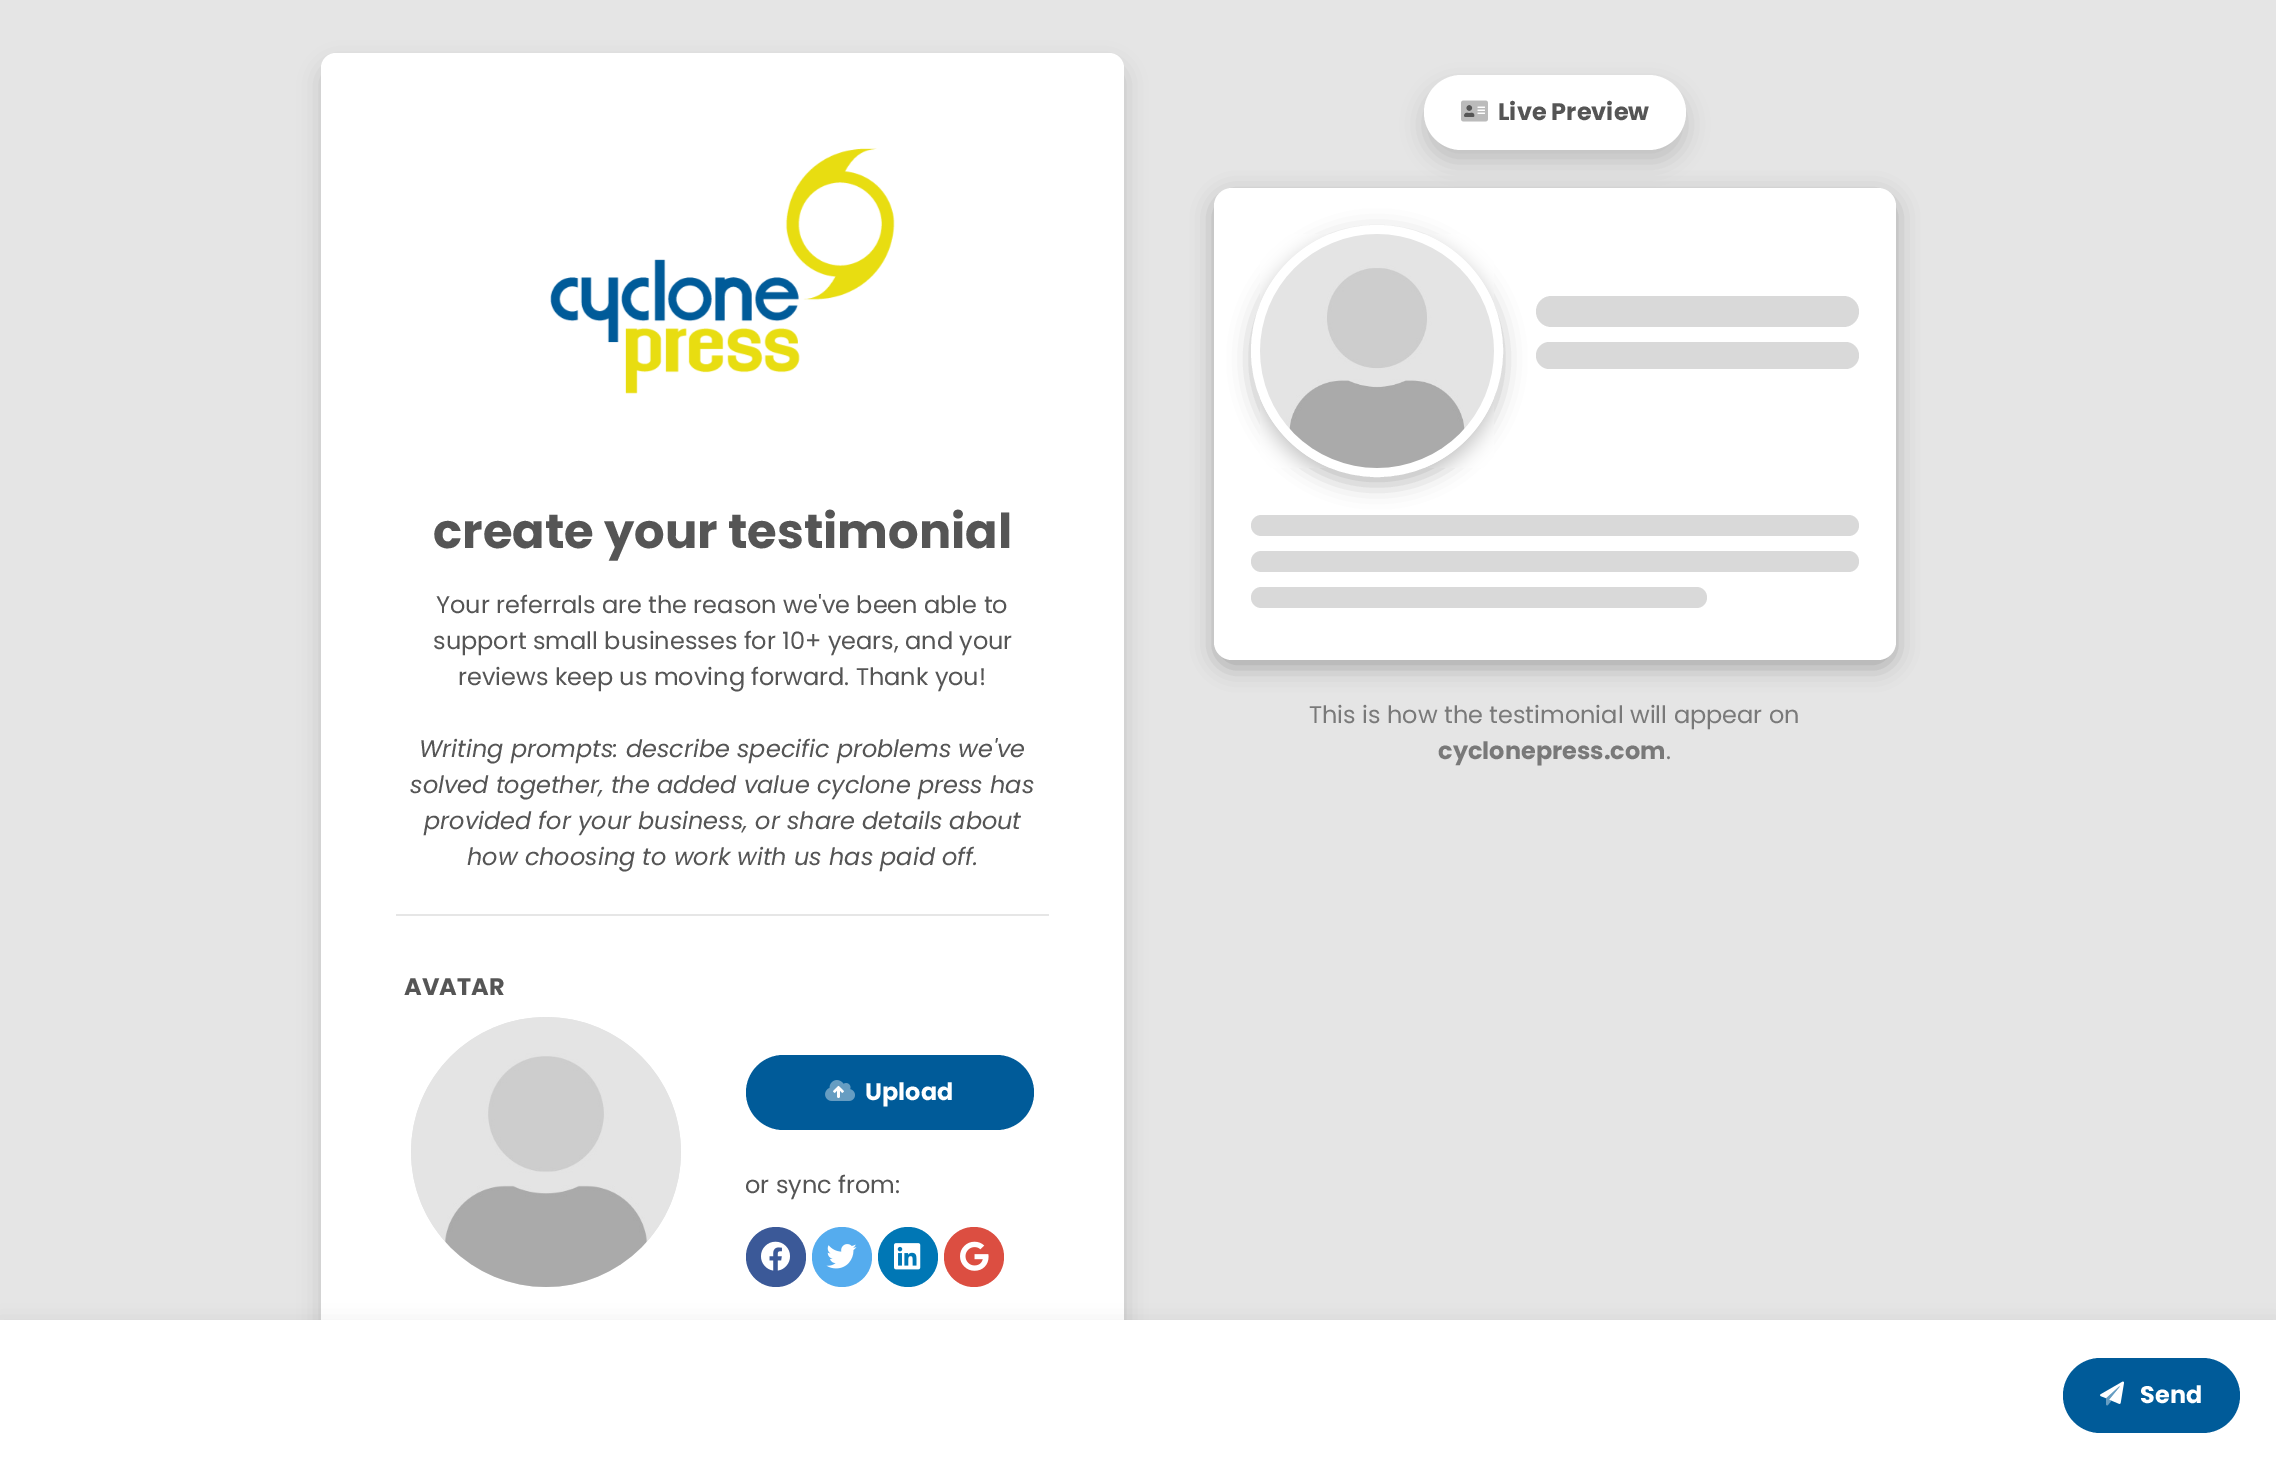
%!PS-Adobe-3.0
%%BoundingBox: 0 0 2276 1470
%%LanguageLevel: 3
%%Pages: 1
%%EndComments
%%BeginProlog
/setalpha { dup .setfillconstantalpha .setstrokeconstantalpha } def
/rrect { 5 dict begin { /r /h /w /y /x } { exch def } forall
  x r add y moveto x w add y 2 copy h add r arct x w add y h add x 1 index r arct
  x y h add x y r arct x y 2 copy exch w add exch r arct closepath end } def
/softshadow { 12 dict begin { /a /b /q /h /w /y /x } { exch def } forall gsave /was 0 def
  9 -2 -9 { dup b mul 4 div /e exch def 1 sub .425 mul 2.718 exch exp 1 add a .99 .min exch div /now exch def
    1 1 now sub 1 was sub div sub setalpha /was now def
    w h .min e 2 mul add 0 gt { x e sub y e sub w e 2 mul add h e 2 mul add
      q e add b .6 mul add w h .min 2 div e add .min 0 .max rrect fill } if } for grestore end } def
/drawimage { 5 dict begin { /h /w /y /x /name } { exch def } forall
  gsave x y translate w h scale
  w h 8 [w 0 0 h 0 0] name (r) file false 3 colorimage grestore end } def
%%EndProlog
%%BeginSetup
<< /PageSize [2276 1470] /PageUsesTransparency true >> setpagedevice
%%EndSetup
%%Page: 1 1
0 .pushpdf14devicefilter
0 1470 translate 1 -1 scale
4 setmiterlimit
0.898 setgray
0 0 2276 1470 rectfill
0 setgray
1424 87 262 75 37.5 11 0.15 softshadow
1 setgray
1424 75 262 75 37.5 rrect fill
(images/2.raw) 1464 105 11 12 drawimage
(images/1.raw) 1461 100 27 22 drawimage
0 setgray
1214 195 682 473 18 11 0.25 softshadow
1 setgray
1214 188 682 472 18 rrect fill
0.851 setgray
1536 296 323 31 15.5 rrect fill
1536 342 323 27 13.5 rrect fill
1251 515 608 21 10.5 rrect fill
0 setgray
1251 233 252 252 126 11 0.25 softshadow
1 setgray
9 setlinewidth
newpath 1377 351 121.5 0 360 arc closepath stroke
(images/3.raw) 1260 234 234 234 drawimage
0.851 setgray
1251 551 608 21 10.5 rrect fill
1251 587 456 21 10.5 rrect fill
0 setgray
321 65 803 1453 15 11 0.15 softshadow
1 setgray
321 53 803 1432 15 rrect fill
(images/4.raw) 550 148 345 246 drawimage
0.902 setgray
396 914 653 2 rectfill
0.894 setgray
newpath 546 1152 135 0 360 arc closepath fill
(images/5.raw) 411 1017 270 270 drawimage
0 0.357 0.6 setrgbcolor
746 1055 288 75 37.5 rrect fill
(images/7.raw) 833 1085 11 13 drawimage
(images/6.raw) 825 1080 30 21 drawimage
0.231 0.349 0.596 setrgbcolor
newpath 776 1257 30 0 360 arc closepath fill
(images/8.raw) 761 1241 29 30 drawimage
0.333 0.675 0.933 setrgbcolor
newpath 842 1257 30 0 360 arc closepath fill
(images/9.raw) 826 1244 31 25 drawimage
0 0.467 0.71 setrgbcolor
newpath 908 1257 30 0 360 arc closepath fill
(images/10.raw) 894 1243 27 27 drawimage
0.863 0.306 0.255 setrgbcolor
newpath 974 1257 30 0 360 arc closepath fill
(images/11.raw) 960 1241 29 30 drawimage
0 setgray
0 1328 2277 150 0 11 0.15 softshadow
1 setgray
0 1320 2276 150 rectfill
0 0.357 0.6 setrgbcolor
2063 1358 177 75 37.5 rrect fill
(images/12.raw) 2100 1381 24 23 drawimage
(images/13.raw) 2106 1386 14 20 drawimage
/Poppins-Bold [24 0 0 -24 0 0] selectfont
0.333 setgray
1498 120 moveto (Live Preview) show
/Poppins-Regular [24 0 0 -24 0 0] selectfont
0.475 setgray
1309 723 moveto (This is how the testimonial will appear on) show
/Poppins-Bold [24 0 0 -24 0 0] selectfont
1438 759 moveto (cyclonepress.com) show
/Poppins-Regular [24 0 0 -24 0 0] selectfont
1666 759 moveto (.) show
/Poppins-Bold [48 0 0 -48 0 0] selectfont
0.333 setgray
433 548 moveto (create your testimonial) show
/Poppins-Regular [24 0 0 -24 0 0] selectfont
436 613 moveto (Your referrals are the reason we've been able to) show
433 649 moveto (support small businesses for 10+ years, and your) show
458 685 moveto (reviews keep us moving forward. Thank you!) show
/Poppins-Italic [24 0 0 -24 0 0] selectfont
419 757 moveto (Writing prompts: describe specific problems we've) show
410 793 moveto (solved together, the added value cyclone press has) show
424 829 moveto (provided for your business, or share details about) show
467 865 moveto (how choosing to work with us has paid off.) show
/Poppins-Bold [24 0 0 -24 0 0] selectfont
404 995 moveto (AVATAR) show
1 setgray
865 1100 moveto (Upload) show
/Poppins-Regular [24 0 0 -24 0 0] selectfont
0.333 setgray
745 1193 moveto (or sync from:) show
/Poppins-Bold [24 0 0 -24 0 0] selectfont
1 setgray
2140 1403 moveto (Send) show
.poppdf14devicefilter showpage
%%EOF
